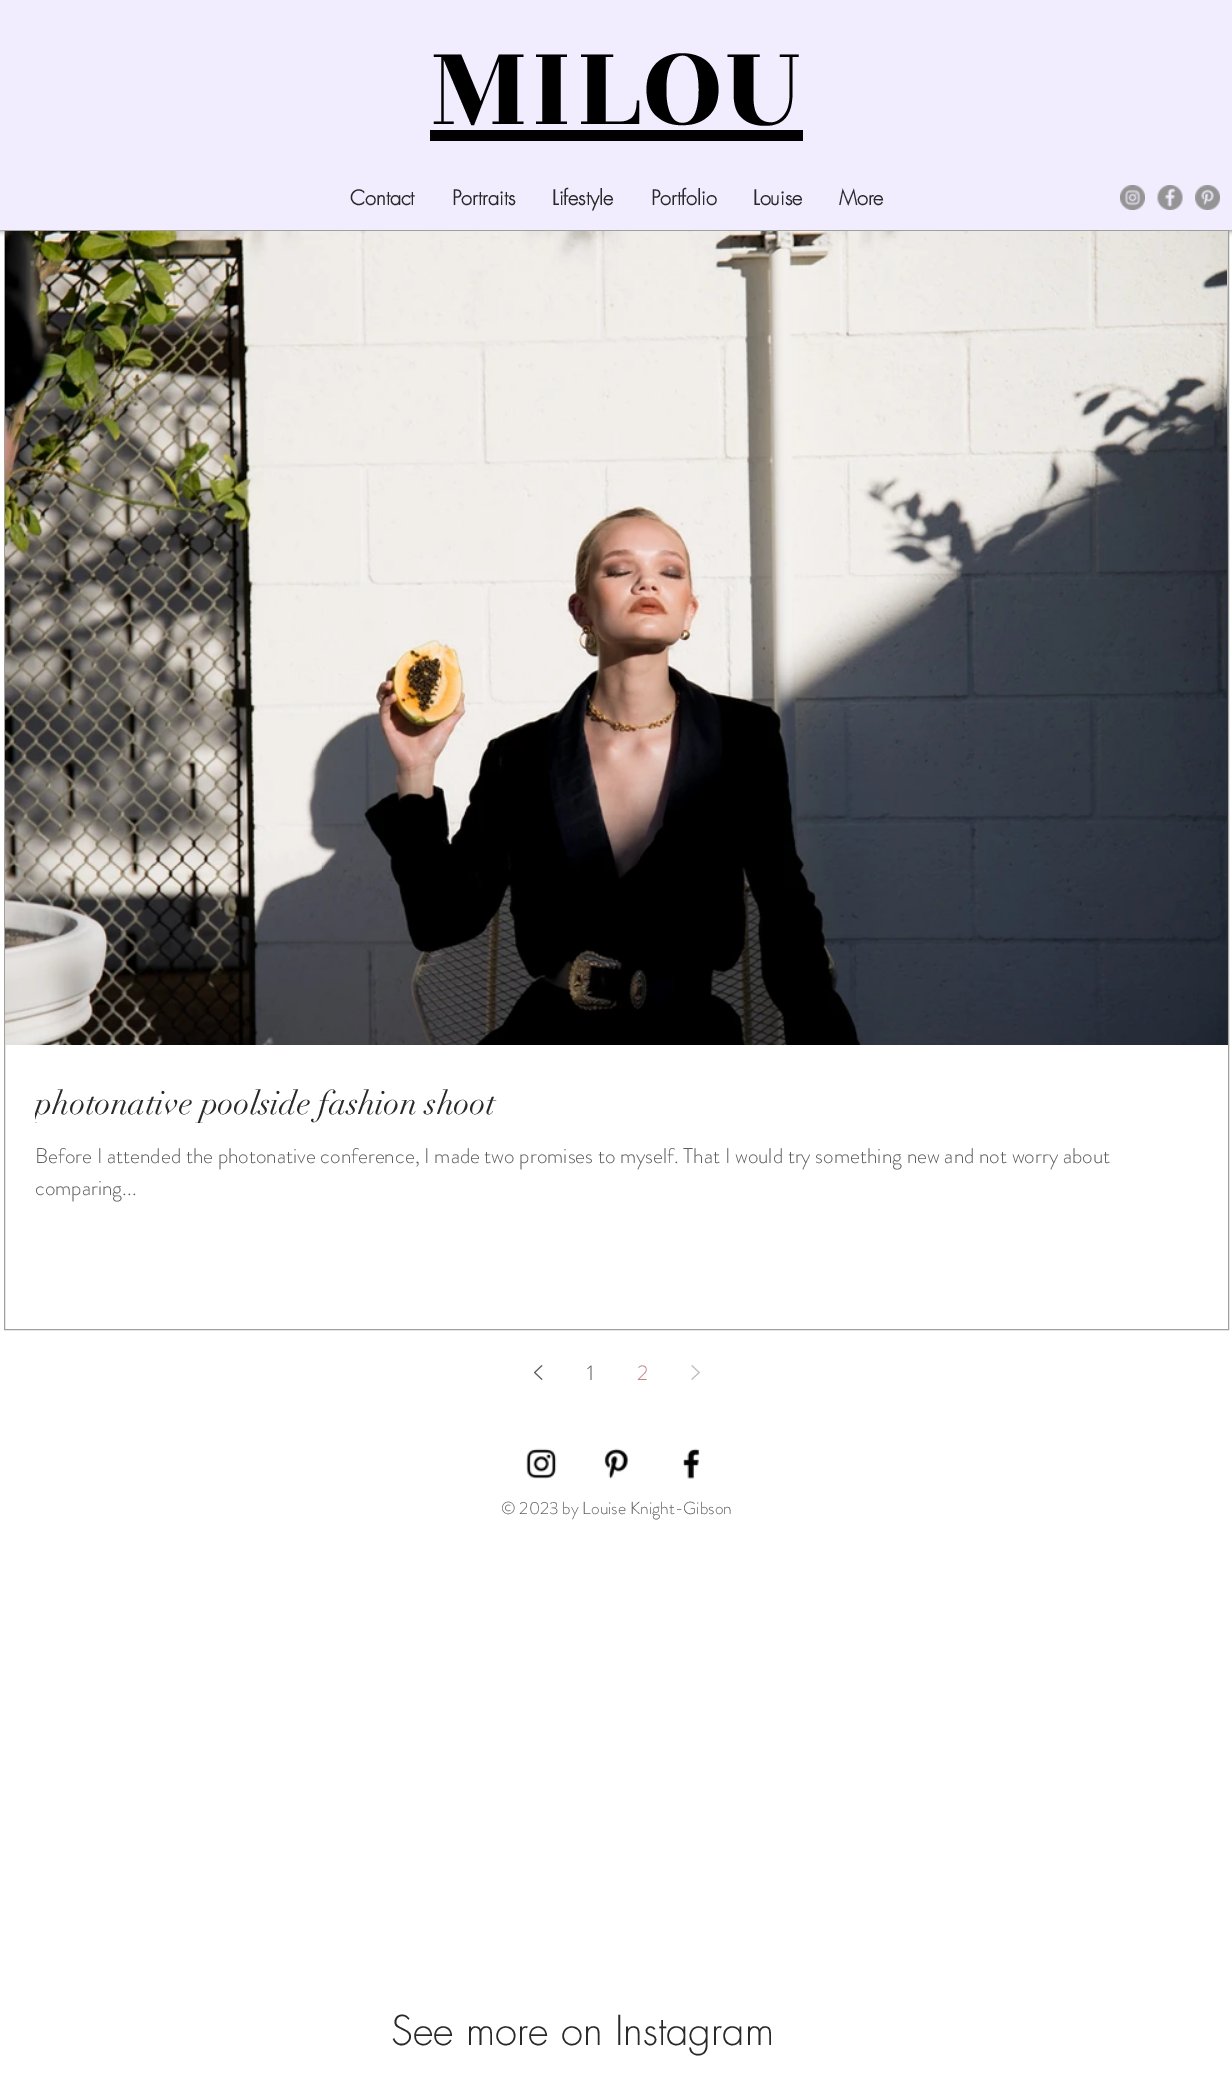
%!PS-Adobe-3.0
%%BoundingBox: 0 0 1232 2086
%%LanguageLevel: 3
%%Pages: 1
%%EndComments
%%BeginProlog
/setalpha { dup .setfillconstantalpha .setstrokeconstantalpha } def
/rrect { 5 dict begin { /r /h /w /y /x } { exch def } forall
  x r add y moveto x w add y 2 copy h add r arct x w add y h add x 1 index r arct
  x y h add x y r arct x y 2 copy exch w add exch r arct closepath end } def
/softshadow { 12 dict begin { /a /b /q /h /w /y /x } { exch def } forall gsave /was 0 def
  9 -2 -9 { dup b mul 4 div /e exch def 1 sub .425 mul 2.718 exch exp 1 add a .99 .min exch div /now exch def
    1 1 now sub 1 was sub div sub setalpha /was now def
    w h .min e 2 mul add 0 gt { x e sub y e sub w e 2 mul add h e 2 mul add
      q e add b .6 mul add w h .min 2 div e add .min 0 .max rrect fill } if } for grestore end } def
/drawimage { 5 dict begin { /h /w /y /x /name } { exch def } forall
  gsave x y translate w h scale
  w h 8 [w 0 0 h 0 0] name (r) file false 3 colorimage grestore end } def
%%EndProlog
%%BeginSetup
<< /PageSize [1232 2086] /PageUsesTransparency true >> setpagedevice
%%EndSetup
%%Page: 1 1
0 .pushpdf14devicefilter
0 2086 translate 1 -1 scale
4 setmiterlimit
1 setgray
0 0 1232 2086 rectfill
0 setgray
0 0 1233 230 0 3 0.7 softshadow
0.949 0.925 1 setrgbcolor
0 0 1232 230 rectfill
0 setgray
430 130 373 11 rectfill
(images/1.raw) 1120 185 25 25 drawimage
(images/2.raw) 1157 185 26 25 drawimage
(images/3.raw) 1195 185 25 25 drawimage
0.627 0.627 0.624 setrgbcolor
4.5 230.5 1224 1099 rectstroke
(images/4.raw) 5 231 1222 814 drawimage
(images/5.raw) 1227 231 1 814 drawimage
(images/6.raw) 534 1365 9 15 drawimage
(images/7.raw) 691 1365 9 15 drawimage
(images/8.raw) 526 1448 31 31 drawimage
(images/9.raw) 604 1448 25 31 drawimage
(images/10.raw) 683 1448 17 31 drawimage
/RozhaOne-Regular [124 0 0 -124 0 0] selectfont
0 setgray
430 124 moveto 3.75 0 (MILOU) ashow
/futura-Bold [20 0 0 -20 0 0] selectfont
0.161 setgray
350 205 moveto (Contact) show
452 205 moveto (Portraits) show
552 205 moveto (Lifestyle) show
651 205 moveto (Portfolio) show
753 205 moveto (Louise) show
839 205 moveto (More) show
gsave
35 1081 1163 45 rectclip
/didot-Regular [32.5 0 0 -32.5 0 0] selectfont
35 1114 moveto (photonative poolside fashion shoot) show
grestore
/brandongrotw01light-Light [21.25 0 0 -21.25 0 0] selectfont
0.376 0.369 0.369 setrgbcolor
35 1163 moveto (Before I attended the photonative conference, I made two promises to myself. That I would try something new and not worry about) show
35 1195 moveto (comparing...) show
587 1380 moveto (1) show
0.749 0.518 0.518 setrgbcolor
637 1380 moveto (2) show
/brandongrotw01light-Light [17.5 0 0 -17.5 0 0] selectfont
0.376 0.369 0.369 setrgbcolor
501 1514 moveto (© 2023 by Louise Knight-Gibson) show
/futura-Light [40 0 0 -40 0 0] selectfont
0.161 setgray
391 2045 moveto (See more on Instagram) show
.poppdf14devicefilter showpage
%%EOF
